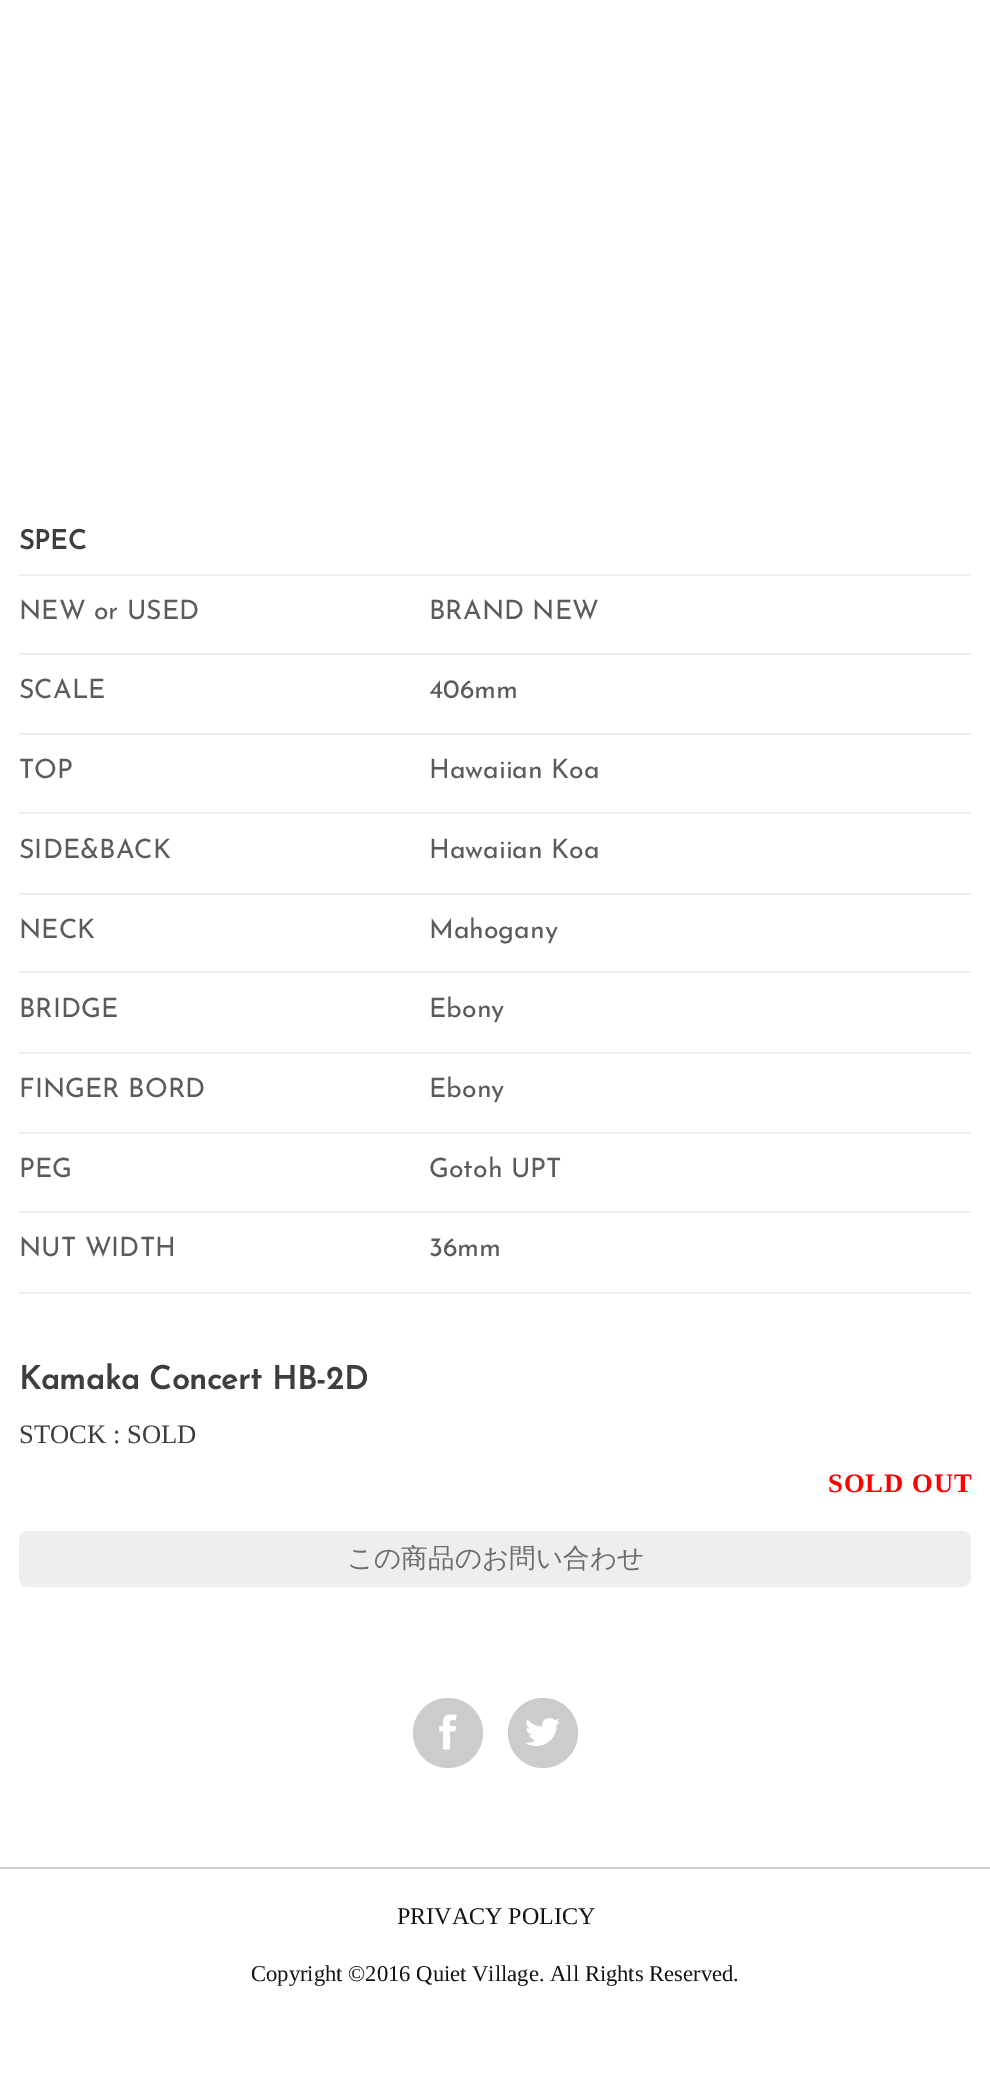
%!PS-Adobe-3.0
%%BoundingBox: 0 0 990 2089
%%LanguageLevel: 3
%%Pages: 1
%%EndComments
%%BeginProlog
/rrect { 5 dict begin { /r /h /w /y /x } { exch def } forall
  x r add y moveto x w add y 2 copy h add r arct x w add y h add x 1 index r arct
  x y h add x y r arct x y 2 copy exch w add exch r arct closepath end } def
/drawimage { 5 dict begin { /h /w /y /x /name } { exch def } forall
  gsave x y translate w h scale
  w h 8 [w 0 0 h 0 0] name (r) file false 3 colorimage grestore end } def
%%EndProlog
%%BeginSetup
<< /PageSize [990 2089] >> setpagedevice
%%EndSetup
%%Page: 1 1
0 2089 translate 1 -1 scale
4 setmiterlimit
1 setgray
0 0 990 2089 rectfill
0.933 setgray
19 574 952 2 rectfill
19 653 952 2 rectfill
19 733 952 2 rectfill
19 812 952 2 rectfill
19 893 952 2 rectfill
19 971 952 2 rectfill
19 1052 952 2 rectfill
19 1132 952 2 rectfill
19 1211 952 2 rectfill
19 1292 952 2 rectfill
19 1531 952 56 9 rrect fill
0.8 setgray
newpath 448 1733 35 0 360 arc closepath fill
(images/1.raw) 439 1714 18 36 drawimage
newpath 543 1733 35 0 360 arc closepath fill
(images/2.raw) 525 1718 35 28 drawimage
0 1867 990 2 rectfill
/JosefinSans-Bold [26.6 0 0 -26.6 0 0] selectfont
0.243 setgray
19 549 moveto (SPEC) show
/JosefinSans-Regular [26.6 0 0 -26.6 0 0] selectfont
0.357 setgray
19 619 moveto (NEW or USED) show
429 619 moveto (BRAND NEW) show
19 698 moveto (SCALE) show
429 698 moveto (406mm) show
19 778 moveto (TOP) show
429 778 moveto (Hawaiian Koa) show
19 858 moveto (SIDE&BACK) show
429 858 moveto (Hawaiian Koa) show
19 938 moveto (NECK) show
429 938 moveto (Mahogany) show
19 1017 moveto (BRIDGE) show
429 1017 moveto (Ebony) show
19 1097 moveto (FINGER BORD) show
429 1097 moveto (Ebony) show
19 1177 moveto (PEG) show
429 1177 moveto (Gotoh UPT) show
19 1256 moveto (NUT WIDTH) show
429 1256 moveto (36mm) show
/JosefinSans-Bold [32 0 0 -32 0 0] selectfont
0.243 setgray
19 1389 moveto (Kamaka Concert HB-2D) show
/LiberationSerif-Regular [26.6 0 0 -26.6 0 0] selectfont
19 1443 moveto (STOCK : SOLD) show
/LiberationSerif-Bold [26.6 0 0 -26.6 0 0] selectfont
1 0 0 setrgbcolor
828 1492 moveto 1 0 (SOLD OUT) ashow
/WenQuanYiZenHei-Medium [26.6 0 0 -26.6 0 0] selectfont
0.427 setgray
347 1567 moveto (この商品のお問い合わせ) show
/LiberationSerif-Regular [24 0 0 -24 0 0] selectfont
0.075 setgray
397 1924 moveto (PRIVACY POLICY) show
/LiberationSerif-Regular [22.6 0 0 -22.6 0 0] selectfont
251 1981 moveto (Copyright ©2016 Quiet Village.) show
550 1981 moveto (All Rights Reserved.) show
showpage
%%EOF
